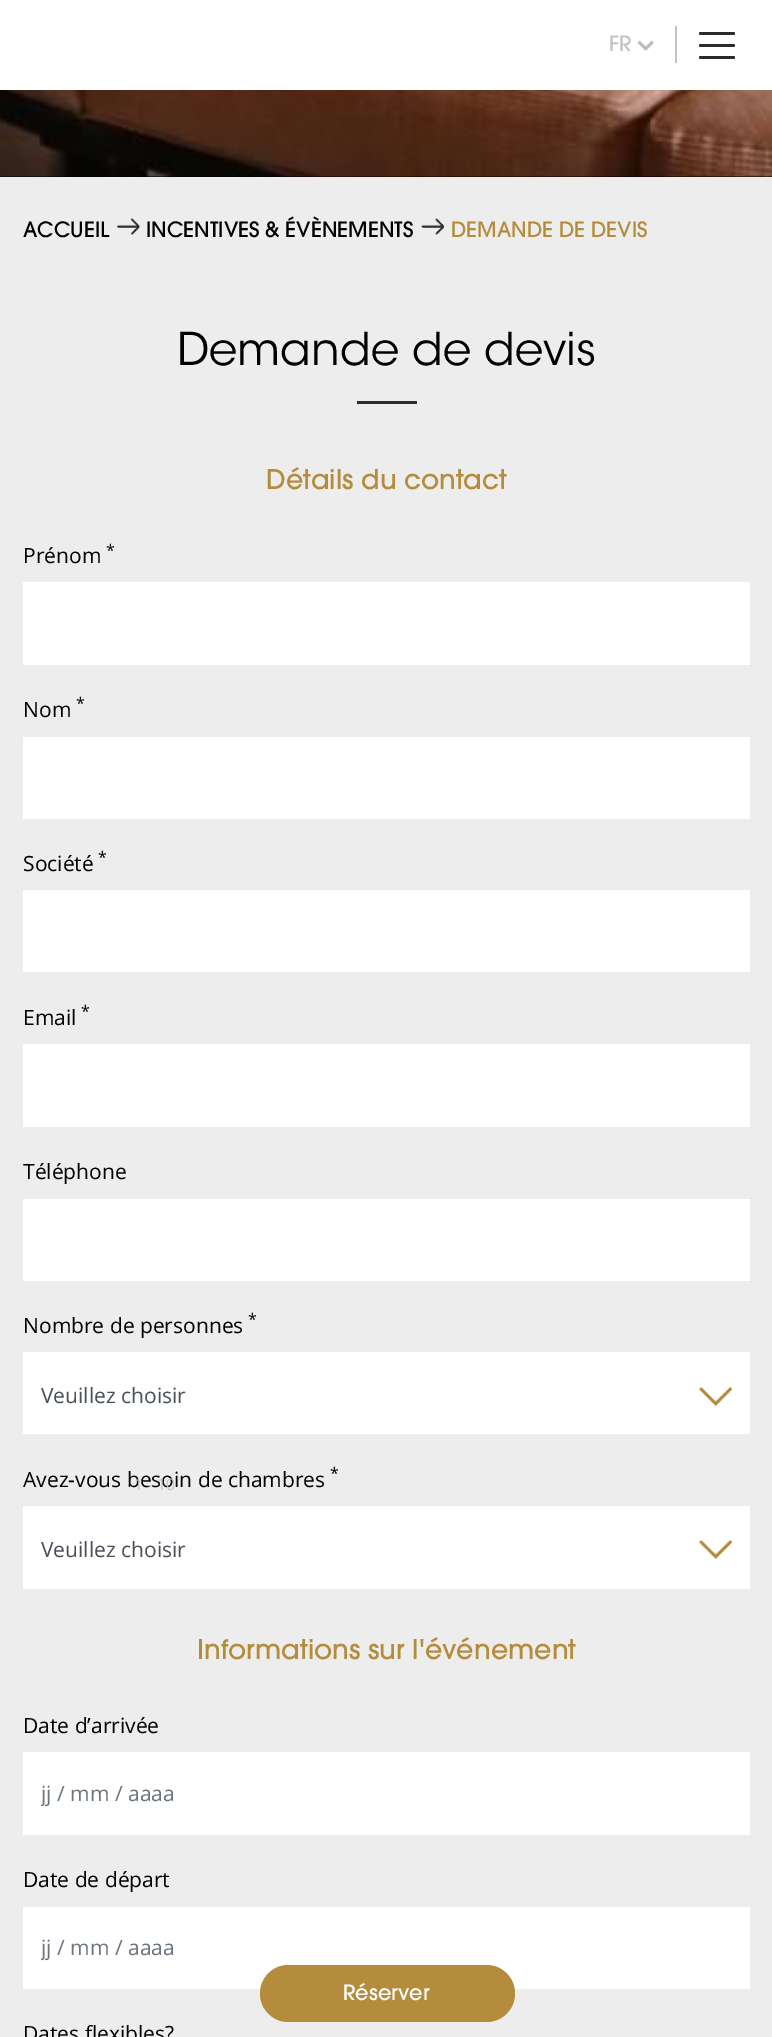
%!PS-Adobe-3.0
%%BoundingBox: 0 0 772 2037
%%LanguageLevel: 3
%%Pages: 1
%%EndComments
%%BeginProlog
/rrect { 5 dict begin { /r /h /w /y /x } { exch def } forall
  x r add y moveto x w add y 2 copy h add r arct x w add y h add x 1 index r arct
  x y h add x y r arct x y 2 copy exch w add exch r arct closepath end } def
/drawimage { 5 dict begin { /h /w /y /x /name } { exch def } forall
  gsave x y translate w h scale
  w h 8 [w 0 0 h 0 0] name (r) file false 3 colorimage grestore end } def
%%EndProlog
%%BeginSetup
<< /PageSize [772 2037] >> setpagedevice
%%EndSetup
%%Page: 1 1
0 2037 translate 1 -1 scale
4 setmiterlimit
0.929 setgray
0 0 772 2037 rectfill
1 setgray
0 0 772 90 rectfill
(images/1.raw) 637 40 17 11 drawimage
0.769 0.761 0.761 setrgbcolor
675 26 2 37 rectfill
0.173 setgray
699 32 36 3 1.5 rrect fill
699 44 36 3 1.5 rrect fill
699 56 36 3 1.5 rrect fill
1 setgray
23 1907 727 82 rectfill
0.71 0.545 0.235 setrgbcolor
260 1965 255 57 28.5 rrect fill
gsave newpath 0 176 moveto 772 176 lineto 772 177 lineto 0 177 lineto closepath clip newpath
<< /ShadingType 2 /ColorSpace /DeviceRGB /Coords [386 177 386 -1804] /Extend [true true] /Function << /FunctionType 3 /Domain [0 1] /Functions [<< /FunctionType 2 /Domain [0 1] /C0 [0 0 0] /C1 [0.702 0.702 0.702] /N 1 >> << /FunctionType 2 /Domain [0 1] /C0 [0.702 0.702 0.702] /C1 [0.702 0.702 0.702] /N 1 >> << /FunctionType 2 /Domain [0 1] /C0 [0.702 0.702 0.702] /C1 [0 0 0] /N 1 >>] /Bounds [0.15 0.75] /Encode [0 1 0 1 0 1] >> >> shfill grestore
(images/2.raw) 0 90 772 87 drawimage
(images/3.raw) 117 218 23 17 drawimage
(images/4.raw) 421 218 23 17 drawimage
0.173 setgray
357 401 60 3 rectfill
1 setgray
23 582 727 83 rectfill
23 737 727 82 rectfill
23 890 727 82 rectfill
23 1044 727 83 rectfill
23 1199 727 82 rectfill
23 1352 727 82 rectfill
(images/5.raw) 699 1387 33 19 drawimage
23 1506 727 83 rectfill
(images/5.raw) 699 1540 33 19 drawimage
23 1752 727 83 rectfill
/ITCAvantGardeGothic-Medium [21 0 0 -21 0 0] selectfont
0.769 setgray
609 51 moveto (FR) show
1 setgray
343 2000 moveto (Réserver) show
0 setgray
23 237 moveto (ACCUEIL) show
146 237 moveto (INCENTIVES & ÉVÈNEMENTS) show
0.71 0.545 0.235 setrgbcolor
451 237 moveto (DEMANDE DE DEVIS) show
/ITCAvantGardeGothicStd-Light [45 0 0 -45 0 0] selectfont
0 setgray
177 365 moveto (Demande de devis) show
/ITCAvantGardeGothic-Medium [27 0 0 -27 0 0] selectfont
0.71 0.545 0.235 setrgbcolor
266 489 moveto (Détails du contact) show
/OpenSans-Regular [21 0 0 -21 0 0] selectfont
0 setgray
23 563 moveto (Prénom) show
/OpenSans-Regular [16 0 0 -16 0 0] selectfont
106 556 moveto (*) show
76 709 moveto (*) show
/OpenSans-Regular [21 0 0 -21 0 0] selectfont
23 717 moveto (Nom) show
23 871 moveto (Société) show
/OpenSans-Regular [16 0 0 -16 0 0] selectfont
98 863 moveto (*) show
/OpenSans-Regular [21 0 0 -21 0 0] selectfont
23 1025 moveto (Email) show
/OpenSans-Regular [16 0 0 -16 0 0] selectfont
81 1017 moveto (*) show
/OpenSans-Regular [21 0 0 -21 0 0] selectfont
23 1179 moveto (Téléphone) show
23 1333 moveto (Nombre de personnes) show
/OpenSans-Regular [16 0 0 -16 0 0] selectfont
248 1325 moveto (*) show
/OpenSans-Regular [21 0 0 -21 0 0] selectfont
0.286 0.314 0.341 setrgbcolor
41 1403 moveto (Veuillez choisir) show
0 setgray
23 1487 moveto (Avez-vous besoin de chambres) show
/OpenSans-Regular [16 0 0 -16 0 0] selectfont
0.769 setgray
134 1490 moveto (1 - 10) show
0 setgray
330 1479 moveto (*) show
/OpenSans-Regular [21 0 0 -21 0 0] selectfont
0.286 0.314 0.341 setrgbcolor
41 1557 moveto (Veuillez choisir) show
/ITCAvantGardeGothic-Medium [27 0 0 -27 0 0] selectfont
0.71 0.545 0.235 setrgbcolor
197 1659 moveto (Informations sur l'événement) show
/OpenSans-Regular [21 0 0 -21 0 0] selectfont
0 setgray
23 1733 moveto (Date d’arrivée) show
gsave
41 1779 691 29 rectclip
0.424 0.459 0.49 setrgbcolor
41 1801 moveto (jj / mm / aaaa) show
grestore
23 1887 moveto (Date de départ) show
gsave
41 1934 691 28 rectclip
0.424 0.459 0.49 setrgbcolor
41 1955 moveto (jj / mm / aaaa) show
grestore
23 2041 moveto (Dates flexibles?) show
showpage
%%EOF
